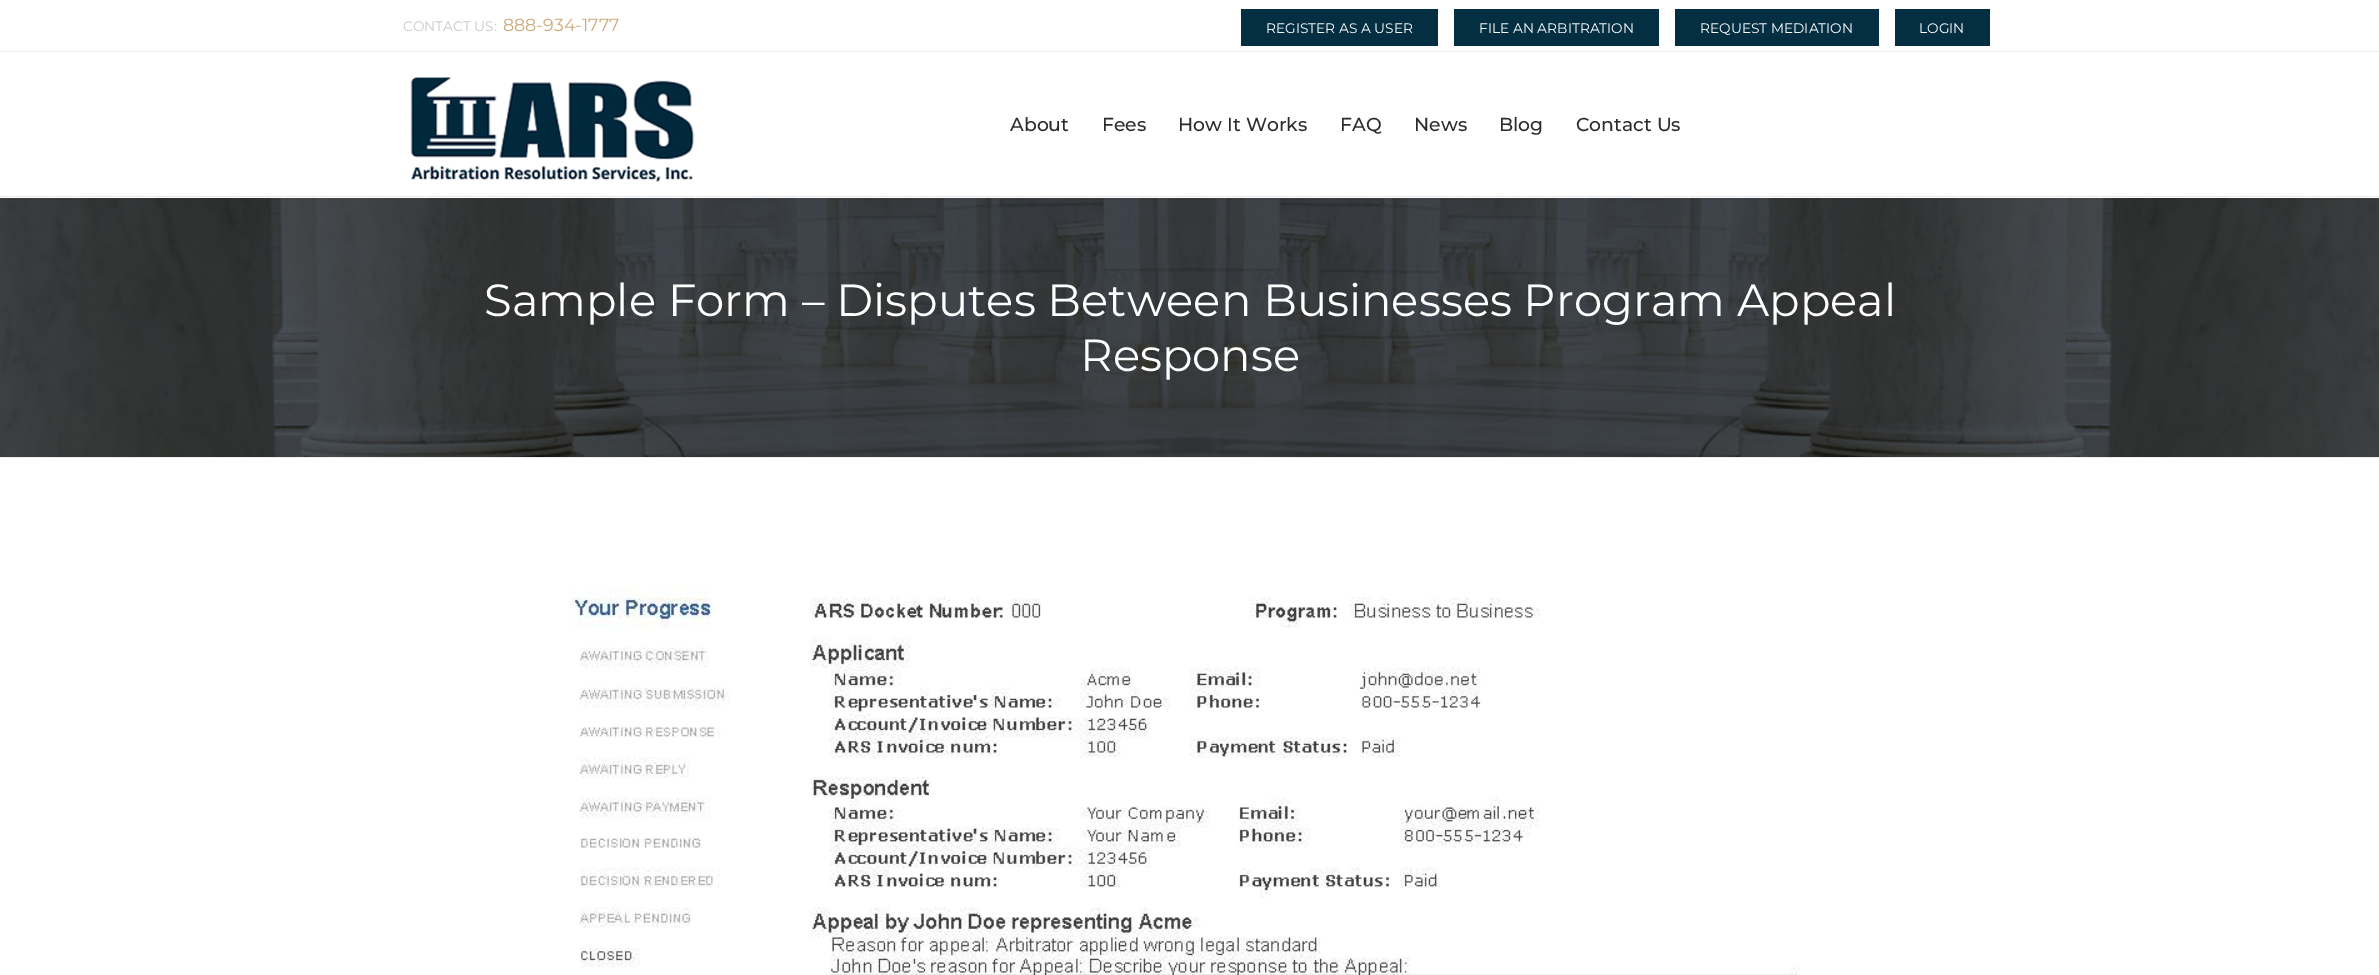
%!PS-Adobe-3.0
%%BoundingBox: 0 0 2379 975
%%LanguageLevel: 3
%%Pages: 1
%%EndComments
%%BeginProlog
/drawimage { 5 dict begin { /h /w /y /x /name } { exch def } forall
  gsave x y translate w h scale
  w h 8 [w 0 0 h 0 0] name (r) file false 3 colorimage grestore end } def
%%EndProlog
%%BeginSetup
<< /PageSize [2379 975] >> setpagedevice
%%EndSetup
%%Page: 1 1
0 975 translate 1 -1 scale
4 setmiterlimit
0.929 setgray
0 0 2379 975 rectfill
1 setgray
0 0 2379 198 rectfill
0.91 setgray
0 196 2379 1 rectfill
0.929 setgray
0 51 2379 1 rectfill
0.016 0.184 0.263 setrgbcolor
1241 9 197 37 rectfill
1454 9 205 37 rectfill
1675 9 204 37 rectfill
1895 9 95 37 rectfill
(images/1.raw) 410 77 285 105 drawimage
(images/2.raw) 0 198 2379 259 drawimage
1 setgray
0 458 2379 517 rectfill
(images/3.raw) 569 587 1231 388 drawimage
/Montserrat-Regular [13.75 0 0 -13.75 0 0] selectfont
0.796 0.788 0.788 setrgbcolor
403 31 moveto (CONTACT US:) show
/Montserrat-Regular [17.5 0 0 -17.5 0 0] selectfont
0.8 0.659 0.463 setrgbcolor
503 31 moveto (888-934-1777) show
/Montserrat-Regular [13.75 0 0 -13.75 0 0] selectfont
1 setgray
1266 33 moveto (REGISTER AS A USER) show
1479 33 moveto (FILE AN ARBITRATION) show
1700 33 moveto (REQUEST MEDIATION) show
1919 33 moveto (LOGIN) show
/Montserrat-Medium [18.75 0 0 -18.75 0 0] selectfont
0.173 setgray
1010 131 moveto (About) show
1102 131 moveto (Fees) show
1178 131 moveto (How It Works) show
1340 131 moveto (FAQ) show
1414 131 moveto (News) show
1499 131 moveto (Blog) show
1576 131 moveto (Contact Us) show
/Montserrat-Regular [45 0 0 -45 0 0] selectfont
1 setgray
484 316 moveto (Sample Form – Disputes Between Businesses Program Appeal) show
1080 371 moveto (Response) show
showpage
%%EOF
